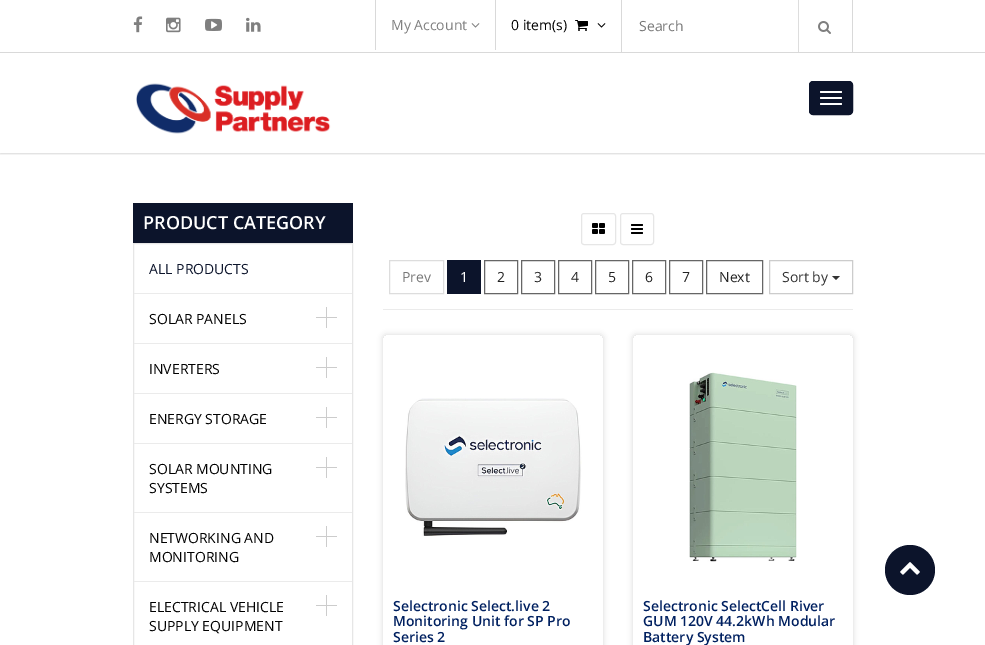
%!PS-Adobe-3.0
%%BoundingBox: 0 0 985 645
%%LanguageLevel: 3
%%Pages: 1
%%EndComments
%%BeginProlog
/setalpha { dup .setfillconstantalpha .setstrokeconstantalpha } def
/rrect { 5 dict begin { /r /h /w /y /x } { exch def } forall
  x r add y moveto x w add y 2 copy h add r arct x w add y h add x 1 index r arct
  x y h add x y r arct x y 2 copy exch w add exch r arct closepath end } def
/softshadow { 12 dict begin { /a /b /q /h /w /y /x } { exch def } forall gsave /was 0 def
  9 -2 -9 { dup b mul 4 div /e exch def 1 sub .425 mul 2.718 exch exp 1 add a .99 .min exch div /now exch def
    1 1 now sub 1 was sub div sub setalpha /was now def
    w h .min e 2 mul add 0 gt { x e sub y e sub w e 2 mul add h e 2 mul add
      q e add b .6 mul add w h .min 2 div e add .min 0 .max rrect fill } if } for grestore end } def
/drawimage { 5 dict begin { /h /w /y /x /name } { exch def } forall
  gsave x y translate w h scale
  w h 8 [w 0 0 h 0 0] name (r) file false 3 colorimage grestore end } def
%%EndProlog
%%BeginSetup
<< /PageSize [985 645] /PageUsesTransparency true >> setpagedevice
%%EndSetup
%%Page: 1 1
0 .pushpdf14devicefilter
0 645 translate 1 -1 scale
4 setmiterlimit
1 setgray
0 0 985 645 rectfill
gsave
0 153 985 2 rectclip
0 setgray
0 1 985 153 0 1 0.15 softshadow
grestore
0.851 setgray
0 52 985 1 rectfill
(images/1.raw) 133 16 10 17 drawimage
(images/2.raw) 166 17 15 16 drawimage
(images/3.raw) 205 18 17 13 drawimage
(images/4.raw) 246 17 15 15 drawimage
375 0 1 50 rectfill
(images/5.raw) 471 23 9 5 drawimage
495 0 1 50 rectfill
(images/6.raw) 575 20 13 11 drawimage
(images/7.raw) 597 23 9 5 drawimage
852 0 1 52 rectfill
621 0 1 52 rectfill
0.867 setgray
798 0 1 52 rectfill
(images/8.raw) 818 21 13 13 drawimage
(images/9.raw) 136 83 195 51 drawimage
0.047 0.078 0.169 setrgbcolor
809.5 81.5 43 33 3.5 rrect gsave fill grestore
stroke
1 setgray
820 91 22 2 1 rrect fill
820 97 22 2 1 rrect fill
820 103 22 2 1 rrect fill
0.047 0.078 0.169 setrgbcolor
133 203 220 40 rectfill
0.902 setgray
133.5 243.5 219 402 rectstroke
0.922 setgray
134 293 218 1 rectfill
134 343 218 1 rectfill
0.8 setgray
326 307 1 21 rectfill
316 317 21 1 rectfill
0.922 setgray
134 393 218 1 rectfill
0.8 setgray
326 357 1 21 rectfill
316 367 21 1 rectfill
0.922 setgray
134 443 218 1 rectfill
0.8 setgray
326 407 1 21 rectfill
316 417 21 1 rectfill
0.922 setgray
134 512 218 1 rectfill
0.8 setgray
326 457 1 21 rectfill
316 467 21 1 rectfill
0.922 setgray
134 581 218 1 rectfill
0.8 setgray
326 526 1 21 rectfill
316 536 21 1 rectfill
326 595 1 21 rectfill
316 605 21 1 rectfill
0.922 setgray
383 309 470 1 rectfill
0.902 setgray
581.5 213.5 34 31 2.5 rrect stroke
(images/10.raw) 592 223 13 11 drawimage
620.5 213.5 33 31 2.5 rrect stroke
(images/11.raw) 631 224 12 10 drawimage
0.867 setgray
389.5 260.5 54 33 rectstroke
0.047 0.078 0.169 setrgbcolor
447 260 34 34 rectfill
0.4 setgray
484.5 260.5 33 33 rectstroke
521.5 260.5 33 33 rectstroke
558.5 260.5 33 33 rectstroke
595.5 260.5 33 33 rectstroke
632.5 260.5 33 33 rectstroke
669.5 260.5 33 33 rectstroke
706.5 260.5 56 33 rectstroke
0.8 setgray
769.5 260.5 83 33 rectstroke
0.2 setgray
newpath 832 276 moveto 840 276 lineto 836 280 lineto closepath fill
gsave
newpath 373 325 moveto 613 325 lineto 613 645 lineto 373 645 lineto closepath 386 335 moveto 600 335 lineto 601.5 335 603 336.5 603 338 curveto 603 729 lineto 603 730.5 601.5 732 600 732 curveto 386 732 lineto 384.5 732 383 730.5 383 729 curveto 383 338 lineto 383 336.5 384.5 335 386 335 curveto closepath eoclip newpath
0 setgray
383 335 220 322 3 3 0.15 softshadow
grestore
(images/12.raw) 405 398 177 138 drawimage
gsave
newpath 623 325 moveto 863 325 lineto 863 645 lineto 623 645 lineto closepath 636 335 moveto 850 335 lineto 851.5 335 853 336.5 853 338 curveto 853 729 lineto 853 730.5 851.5 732 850 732 curveto 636 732 lineto 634.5 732 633 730.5 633 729 curveto 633 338 lineto 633 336.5 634.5 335 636 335 curveto closepath eoclip newpath
0 setgray
633 335 220 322 3 3 0.15 softshadow
grestore
(images/13.raw) 689 372 108 190 drawimage
0.047 0.078 0.169 setrgbcolor
newpath 910 570 25 0 360 arc closepath fill
(images/14.raw) 900 562 20 13 drawimage
/OpenSans-Regular [14 0 0 -14 0 0] selectfont
0.502 setgray
391 30 moveto (My Account) show
0 setgray
511 30 moveto (0 item\(s\)) show
0.467 setgray
639 31 moveto (Search) show
/OpenSans-SemiBold [18 0 0 -18 0 0] selectfont
1 setgray
143 229 moveto (PRODUCT CATEGORY) show
/OpenSans-Regular [14 0 0 -14 0 0] selectfont
0.047 0.078 0.169 setrgbcolor
149 274 moveto (ALL PRODUCTS) show
0 setgray
149 324 moveto (SOLAR PANELS) show
149 374 moveto (INVERTERS) show
149 424 moveto (ENERGY STORAGE) show
149 474 moveto (SOLAR MOUNTING) show
149 493 moveto (SYSTEMS) show
149 543 moveto (NETWORKING AND) show
149 562 moveto (MONITORING) show
149 612 moveto (ELECTRICAL VEHICLE) show
149 631 moveto (SUPPLY EQUIPMENT) show
0.467 setgray
402 282 moveto (Prev) show
1 setgray
460 282 moveto (1) show
0.133 setgray
497 282 moveto (2) show
534 282 moveto (3) show
571 282 moveto (4) show
608 282 moveto (5) show
645 282 moveto (6) show
682 282 moveto (7) show
719 282 moveto (Next) show
0.2 setgray
782 282 moveto (Sort by) show
/OpenSans-SemiBold [14 0 0 -14 0 0] selectfont
0 0.125 0.376 setrgbcolor
393 611 moveto (Selectronic Select.live 2) show
393 626 moveto (Monitoring Unit for SP Pro) show
393 642 moveto (Series 2) show
643 611 moveto (Selectronic SelectCell River) show
643 626 moveto (GUM 120V 44.2kWh Modular) show
643 642 moveto (Battery System) show
.poppdf14devicefilter showpage
%%EOF
